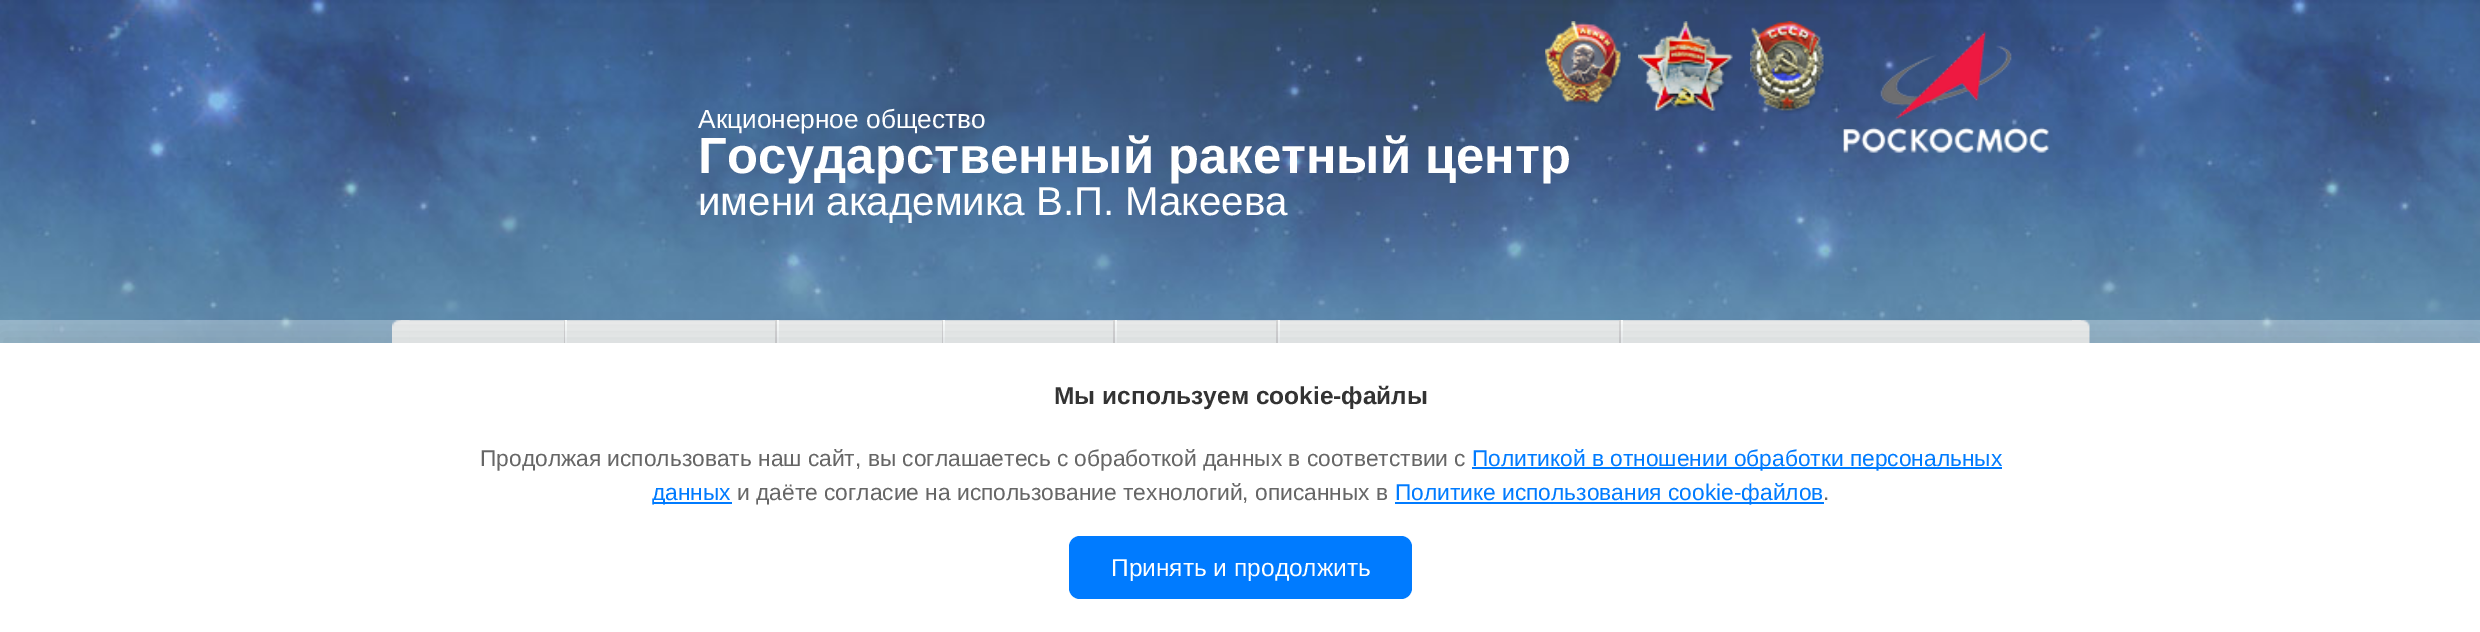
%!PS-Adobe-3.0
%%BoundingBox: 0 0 2480 632
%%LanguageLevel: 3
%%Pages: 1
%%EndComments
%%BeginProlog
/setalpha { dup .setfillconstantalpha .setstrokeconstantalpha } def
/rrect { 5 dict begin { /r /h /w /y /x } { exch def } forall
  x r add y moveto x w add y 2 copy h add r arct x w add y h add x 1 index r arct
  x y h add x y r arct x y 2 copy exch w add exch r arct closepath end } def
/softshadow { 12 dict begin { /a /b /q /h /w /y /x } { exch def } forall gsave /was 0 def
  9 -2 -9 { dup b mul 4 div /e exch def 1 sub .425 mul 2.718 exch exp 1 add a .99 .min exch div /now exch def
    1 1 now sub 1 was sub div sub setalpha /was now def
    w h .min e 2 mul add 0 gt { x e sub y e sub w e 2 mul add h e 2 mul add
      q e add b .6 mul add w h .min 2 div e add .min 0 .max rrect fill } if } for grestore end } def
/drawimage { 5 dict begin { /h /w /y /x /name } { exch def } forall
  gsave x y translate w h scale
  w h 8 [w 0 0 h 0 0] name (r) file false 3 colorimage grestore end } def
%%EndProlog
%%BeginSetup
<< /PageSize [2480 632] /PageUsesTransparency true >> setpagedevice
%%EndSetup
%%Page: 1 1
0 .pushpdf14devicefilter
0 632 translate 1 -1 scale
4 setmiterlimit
1 setgray
0 0 2480 632 rectfill
(images/1.raw) 0 0 2480 343 drawimage
(images/2.raw) 1545 21 77 85 drawimage
(images/3.raw) 1638 21 95 93 drawimage
(images/4.raw) 1750 21 75 93 drawimage
(images/5.raw) 1843 31 206 122 drawimage
0.3 setalpha
0 320 2480 23 rectfill
1 setalpha
(images/6.raw) 400 320 1681 23 drawimage
(images/7.raw) 392 320 18 23 drawimage
0.843 setgray
564 320 1 23 rectfill
775 320 2 23 rectfill
0.988 setgray
565 320 2 23 rectfill
0.843 setgray
942 320 1 23 rectfill
0.988 setgray
777 320 2 23 rectfill
0.843 setgray
1113 320 2 23 rectfill
0.988 setgray
943 320 2 23 rectfill
0.843 setgray
1276 320 2 23 rectfill
0.988 setgray
1115 320 2 23 rectfill
0.843 setgray
1619 320 2 23 rectfill
0.988 setgray
1278 320 2 23 rectfill
1621 320 2 23 rectfill
(images/8.raw) 2072 320 18 23 drawimage
0.133 0.235 0.314 setrgbcolor
0 334 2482 291 0 13 0.15 softshadow
1 setgray
0 343 2480 289 rectfill
0 0.482 1 setrgbcolor
1472 467 530 2 rectfill
653 502 79 2 rectfill
1395 502 429 2 rectfill
1069 536 343 63 11 rrect fill
/LiberationSans-Regular [26.25 0 0 -26.25 0 0] selectfont
1 setgray
698 128 moveto (Акционерное общество) show
/LiberationSans-Bold [50.75 0 0 -50.75 0 0] selectfont
698 173 moveto (Государственный ракетный центр) show
/LiberationSans-Regular [40.25 0 0 -40.25 0 0] selectfont
698 215 moveto (имени академика В.П. Макеева) show
/LiberationSans-Bold [24.5 0 0 -24.5 0 0] selectfont
0.2 setgray
1054 404 moveto (Мы используем cookie-файлы) show
/LiberationSans-Regular [22.75 0 0 -22.75 0 0] selectfont
0.4 setgray
480 466 moveto (Продолжая использовать наш сайт, вы соглашаетесь с обработкой данных в соответствии с) show
0 0.482 1 setrgbcolor
1472 466 moveto (Политикой в отношении обработки персональных) show
652 500 moveto (данных) show
0.4 setgray
737 500 moveto (и даёте согласие на использование технологий, описанных в) show
0 0.482 1 setrgbcolor
1395 500 moveto (Политике использования cookie-файлов) show
0.4 setgray
1823 500 moveto (.) show
/LiberationSans-Regular [24.5 0 0 -24.5 0 0] selectfont
1 setgray
1111 576 moveto (Принять и продолжить) show
.poppdf14devicefilter showpage
%%EOF
